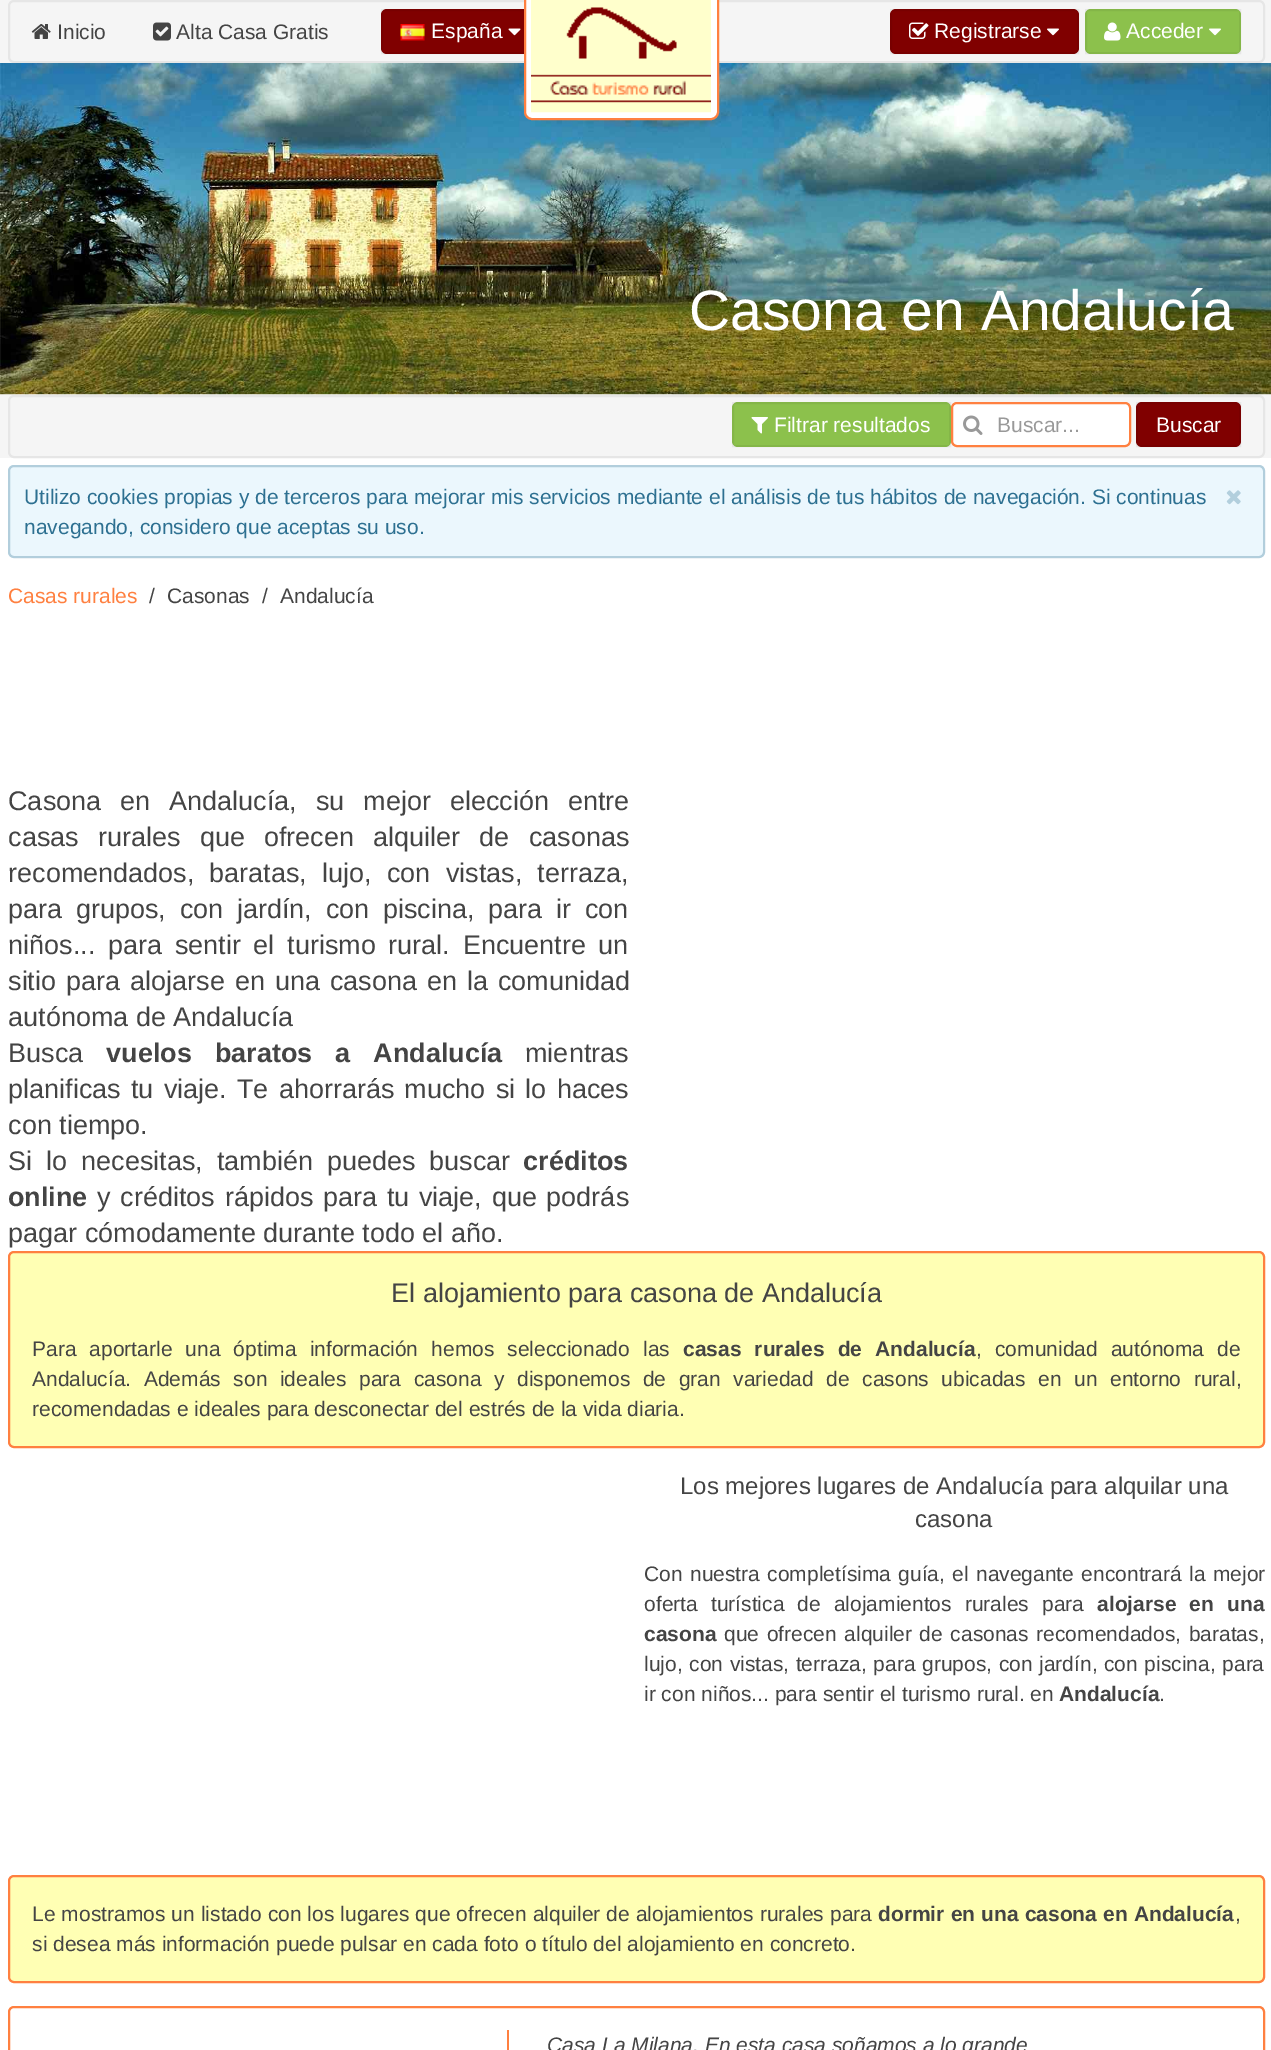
%!PS-Adobe-3.0
%%BoundingBox: 0 0 1271 2050
%%LanguageLevel: 3
%%Pages: 1
%%EndComments
%%BeginProlog
/setalpha { dup .setfillconstantalpha .setstrokeconstantalpha } def
/rrect { 5 dict begin { /r /h /w /y /x } { exch def } forall
  x r add y moveto x w add y 2 copy h add r arct x w add y h add x 1 index r arct
  x y h add x y r arct x y 2 copy exch w add exch r arct closepath end } def
/drawimage { 5 dict begin { /h /w /y /x /name } { exch def } forall
  gsave x y translate w h scale
  w h 8 [w 0 0 h 0 0] name (r) file false 3 colorimage grestore end } def
%%EndProlog
%%BeginSetup
<< /PageSize [1271 2050] /PageUsesTransparency true >> setpagedevice
%%EndSetup
%%Page: 1 1
0 .pushpdf14devicefilter
0 2050 translate 1 -1 scale
4 setmiterlimit
1 setgray
0 0 1271 2050 rectfill
0.961 setgray
0 0 1271 63 rectfill
0.902 setgray
2 setlinewidth
9 1 1255 61 5 rrect stroke
0.502 0 0 setrgbcolor
381 9 159 45 6 rrect fill
0.06 setalpha
0 setgray
382 10 157 43 rectstroke
1 setalpha
(images/10.raw) 0 63 1271 332 drawimage
1 setgray
525 -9 193 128 7 rrect gsave fill grestore
1 0.502 0.251 setrgbcolor
stroke
(images/1.raw) 531 0 180 113 drawimage
(images/2.raw) 31 24 20 15 drawimage
(images/3.raw) 153 22 18 19 drawimage
(images/4.raw) 400 24 25 17 drawimage
(images/5.raw) 508 28 13 8 drawimage
0.502 0 0 setrgbcolor
890 9 189 45 6 rrect fill
0.06 setalpha
0 setgray
891 10 187 43 rectstroke
1 setalpha
(images/6.raw) 909 22 20 17 drawimage
(images/7.raw) 1047 28 12 8 drawimage
0.549 0.757 0.298 setrgbcolor
1085 9 156 45 6 rrect fill
0.06 setalpha
0 setgray
1086 10 154 43 rectstroke
1 setalpha
(images/8.raw) 1104 22 17 19 drawimage
(images/9.raw) 1209 28 12 8 drawimage
0.961 setgray
0 395 1271 63 rectfill
0.902 setgray
9 396 1255 61 5 rrect stroke
0.549 0.757 0.298 setrgbcolor
732 402 219 45 6 rrect fill
0.06 setalpha
0 setgray
733 403 217 43 rectstroke
1 setalpha
(images/11.raw) 751 417 17 17 drawimage
1 setgray
952 403 178 43 5 rrect gsave fill grestore
1 0.502 0.251 setrgbcolor
stroke
(images/12.raw) 963 415 20 20 drawimage
0.502 0 0 setrgbcolor
1136 402 105 45 6 rrect fill
0.06 setalpha
0 setgray
1137 403 103 43 rectstroke
1 setalpha
0.922 0.969 0.992 setrgbcolor
8 465 1257 93 6 rrect fill
0.3 setalpha
0.176 0.439 0.569 setrgbcolor
9 466 1255 91 5 rrect stroke
1 setalpha
(images/13.raw) 1226 490 15 15 drawimage
1 1 0.706 setrgbcolor
9 1252 1255 195 5 rrect gsave fill grestore
1 0.502 0.251 setrgbcolor
stroke
1 1 0.706 setrgbcolor
9 1876 1255 106 5 rrect gsave fill grestore
1 0.502 0.251 setrgbcolor
stroke
9 2007 1255 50 5 rrect stroke
507 2030 2 20 rectfill
/LiberationSans-Regular [21 0 0 -21 0 0] selectfont
0.267 setgray
57 39 moveto (Inicio) show
176 39 moveto (Alta Casa Gratis) show
1 setgray
431 38 moveto (España) show
934 38 moveto (Registrarse) show
1126 38 moveto (Acceder) show
/LiberationSans-Regular [57 0 0 -57 0 0] selectfont
689 330 moveto (Casona en Andalucía) show
/LiberationSans-Regular [21 0 0 -21 0 0] selectfont
774 432 moveto (Filtrar resultados) show
0.6 setgray
997 432 moveto (Buscar...) show
1 setgray
1156 432 moveto (Buscar) show
0.176 0.439 0.569 setrgbcolor
24 504 moveto (Utilizo cookies propias y de terceros para mejorar mis servicios mediante el análisis de tus hábitos de navegación. Si continuas) show
24 534 moveto (navegando, considero que aceptas su uso.) show
1 0.502 0.251 setrgbcolor
8 603 moveto (Casas rurales) show
0.267 setgray
149 603 moveto (/) show
167 603 moveto (Casonas) show
262 603 moveto (/) show
280 603 moveto (Andalucía) show
/LiberationSans-Regular [27 0 0 -27 0 0] selectfont
8 810 moveto 11.5 0 32 (Casona en Andalucía, su mejor elección entre) widthshow
8 846 moveto 11.75 0 32 (casas rurales que ofrecen alquiler de casonas) widthshow
8 882 moveto 7.75 0 32 (recomendados, baratas, lujo, con vistas, terraza,) widthshow
8 918 moveto 6.25 0 32 (para grupos, con jardín, con piscina, para ir con) widthshow
8 954 moveto 5.25 0 32 (niños... para sentir el turismo rural. Encuentre un) widthshow
8 990 moveto 2.5 0 32 (sitio para alojarse en una casona en la comunidad) widthshow
8 1026 moveto (autónoma de Andalucía) show
8 1062 moveto (Busca) show
/LiberationSans-Bold [27 0 0 -27 0 0] selectfont
106 1062 moveto 15.5 0 32 (vuelos baratos a Andalucía) widthshow
/LiberationSans-Regular [27 0 0 -27 0 0] selectfont
525 1062 moveto (mientras) show
8 1098 moveto 2.75 0 32 (planificas tu viaje. Te ahorrarás mucho si lo haces) widthshow
8 1134 moveto (con tiempo.) show
8 1170 moveto 6.5 0 32 (Si lo necesitas, también puedes buscar) widthshow
/LiberationSans-Bold [27 0 0 -27 0 0] selectfont
523 1170 moveto (créditos) show
8 1206 moveto (online) show
/LiberationSans-Regular [27 0 0 -27 0 0] selectfont
97 1206 moveto 2.25 0 32 (y créditos rápidos para tu viaje, que podrás) widthshow
8 1242 moveto (pagar cómodamente durante todo el año.) show
391 1302 moveto (El alojamiento para casona de Andalucía) show
/LiberationSans-Regular [21 0 0 -21 0 0] selectfont
32 1356 moveto 7.25 0 32 (Para aportarle una óptima información hemos seleccionado las) widthshow
/LiberationSans-Bold [21 0 0 -21 0 0] selectfont
683 1356 moveto 7.25 0 32 (casas rurales de Andalucía) widthshow
/LiberationSans-Regular [21 0 0 -21 0 0] selectfont
976 1356 moveto 7.25 0 32 (, comunidad autónoma de) widthshow
32 1386 moveto 6.75 0 32 (Andalucía. Además son ideales para casona y disponemos de gran variedad de casons ubicadas en un entorno rural,) widthshow
32 1416 moveto (recomendadas e ideales para desconectar del estrés de la vida diaria.) show
/LiberationSans-Regular [24 0 0 -24 0 0] selectfont
680 1494 moveto (Los mejores lugares de Andalucía para alquilar una) show
915 1527 moveto (casona) show
/LiberationSans-Regular [21 0 0 -21 0 0] selectfont
644 1581 moveto 1.5 0 32 (Con nuestra completísima guía, el navegante encontrará la mejor) widthshow
644 1611 moveto 7.25 0 32 (oferta turística de alojamientos rurales para) widthshow
/LiberationSans-Bold [21 0 0 -21 0 0] selectfont
1097 1611 moveto 7.25 0 32 (alojarse en una) widthshow
644 1641 moveto (casona) show
/LiberationSans-Regular [21 0 0 -21 0 0] selectfont
724 1641 moveto 1.75 0 32 (que ofrecen alquiler de casonas recomendados, baratas,) widthshow
644 1671 moveto 0.75 0 32 (lujo, con vistas, terraza, para grupos, con jardín, con piscina, para) widthshow
644 1701 moveto (ir con niños... para sentir el turismo rural. en) show
/LiberationSans-Bold [21 0 0 -21 0 0] selectfont
1059 1701 moveto (Andalucía) show
/LiberationSans-Regular [21 0 0 -21 0 0] selectfont
1159 1701 moveto (.) show
32 1921 moveto 0.25 0 32 (Le mostramos un listado con los lugares que ofrecen alquiler de alojamientos rurales para) widthshow
/LiberationSans-Bold [21 0 0 -21 0 0] selectfont
878 1921 moveto 0.25 0 32 (dormir en una casona en Andalucía) widthshow
/LiberationSans-Regular [21 0 0 -21 0 0] selectfont
1235 1921 moveto (,) show
32 1951 moveto (si desea más información puede pulsar en cada foto o título del alojamiento en concreto.) show
/LiberationSans-Italic [21 0 0 -21 0 0] selectfont
547 2052 moveto (Casa La Milana, En esta casa soñamos a lo grande) show
.poppdf14devicefilter showpage
%%EOF
